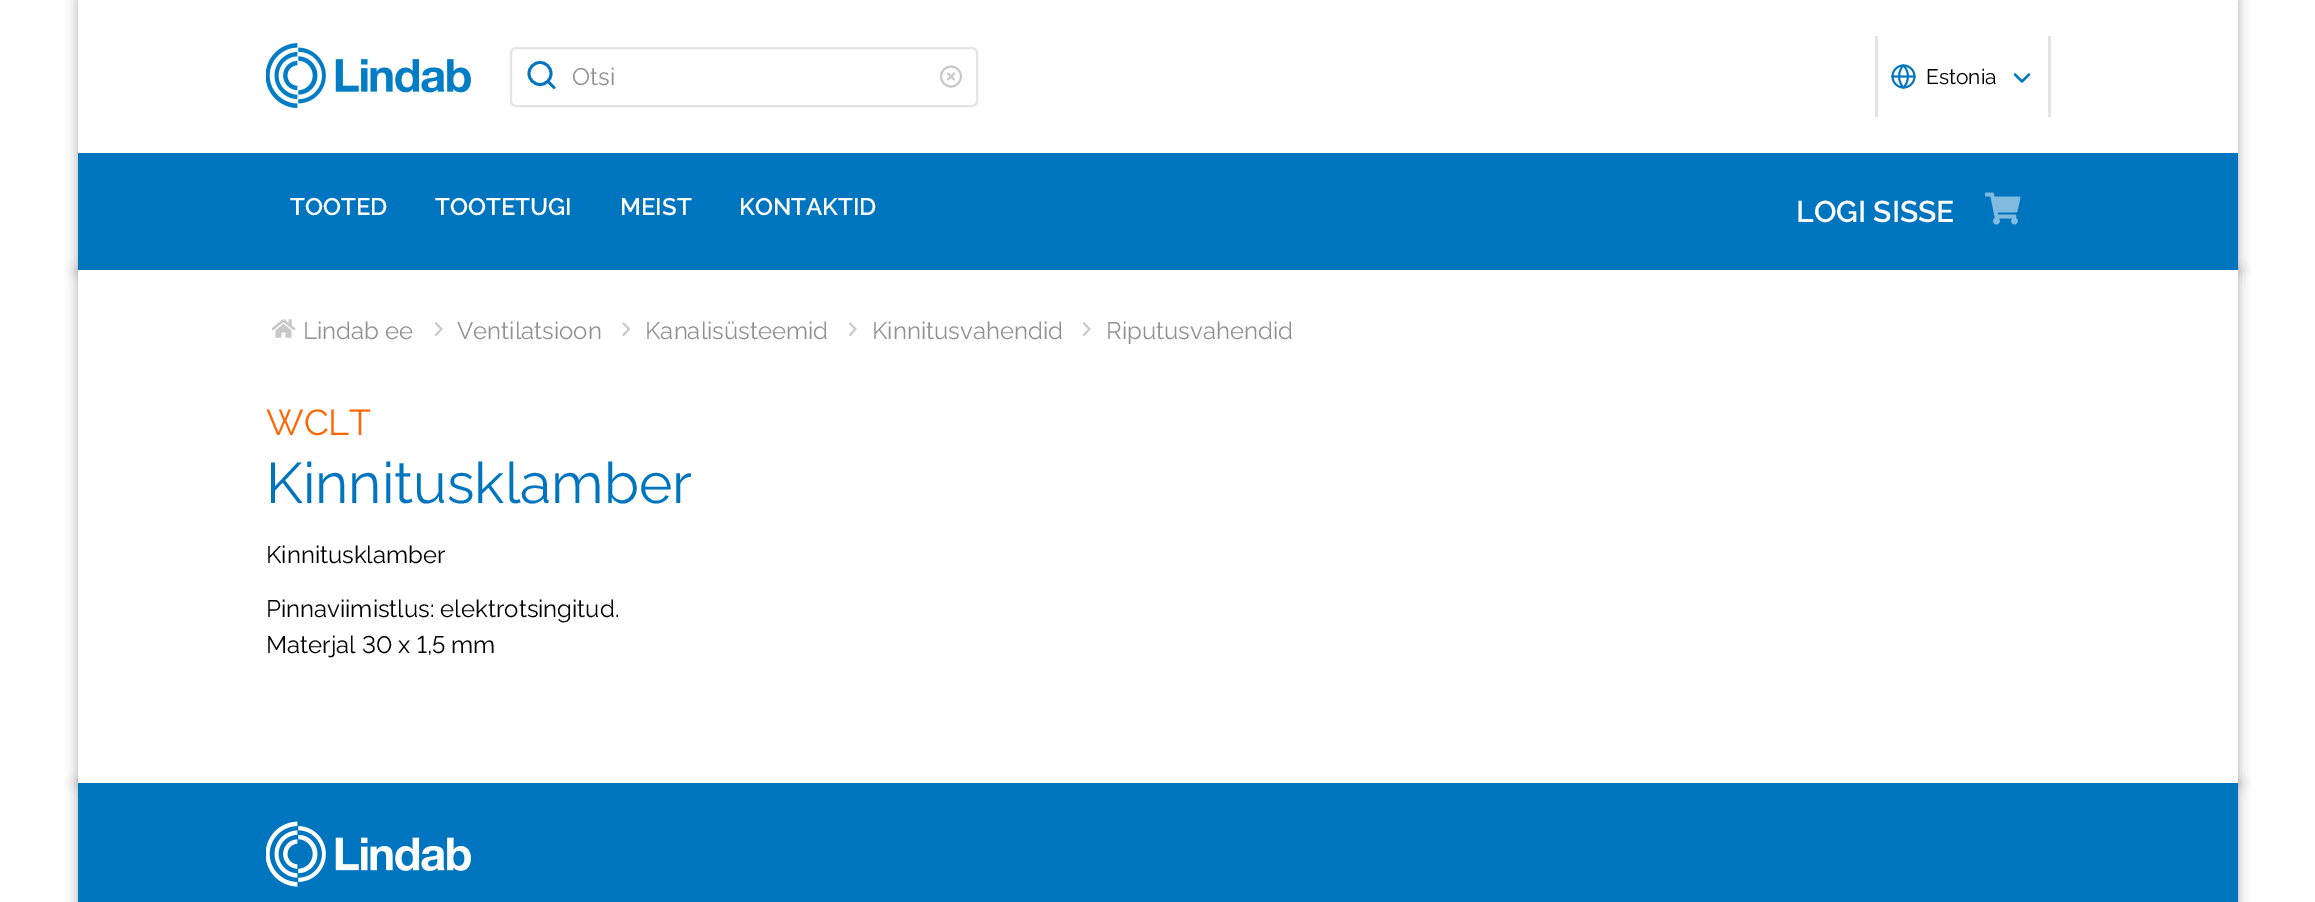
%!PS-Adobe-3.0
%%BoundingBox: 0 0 2315 902
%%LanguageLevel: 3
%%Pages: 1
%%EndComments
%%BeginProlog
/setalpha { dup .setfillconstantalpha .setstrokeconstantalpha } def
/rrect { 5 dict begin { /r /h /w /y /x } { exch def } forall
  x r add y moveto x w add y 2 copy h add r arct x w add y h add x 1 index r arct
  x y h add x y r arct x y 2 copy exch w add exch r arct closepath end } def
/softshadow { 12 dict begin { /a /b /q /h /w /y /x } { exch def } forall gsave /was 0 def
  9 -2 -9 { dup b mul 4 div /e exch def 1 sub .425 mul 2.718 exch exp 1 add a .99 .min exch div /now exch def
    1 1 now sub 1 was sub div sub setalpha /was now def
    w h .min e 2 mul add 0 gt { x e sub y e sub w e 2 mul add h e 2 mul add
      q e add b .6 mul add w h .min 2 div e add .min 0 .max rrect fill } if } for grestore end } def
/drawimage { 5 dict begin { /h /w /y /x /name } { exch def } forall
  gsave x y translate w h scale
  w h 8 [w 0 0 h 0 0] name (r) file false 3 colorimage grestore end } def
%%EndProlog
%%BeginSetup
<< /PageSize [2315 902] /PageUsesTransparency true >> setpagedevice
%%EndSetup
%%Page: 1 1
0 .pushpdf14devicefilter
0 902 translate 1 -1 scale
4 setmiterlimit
1 setgray
0 0 2315 902 rectfill
gsave
newpath 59 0 moveto 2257 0 lineto 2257 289 lineto 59 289 lineto closepath 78 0 moveto 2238 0 lineto 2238 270 lineto 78 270 lineto closepath eoclip newpath
0.165 setgray
78 0 2160 270 0 6 0.2 softshadow
78 0 2160 270 0 6 0.2 softshadow
grestore
(images/1.raw) 266 43 205 66 drawimage
0.894 setgray
2 setlinewidth
511 48 466 58 5 rrect stroke
0 0.459 0.749 setrgbcolor
2.8 setlinewidth
newpath 540 73.5 11 0 360 arc closepath stroke
1 setlinecap
1 setlinejoin
newpath 554 87.5 moveto 548 81.5 lineto stroke
0.788 setgray
2 setlinewidth
0 setlinecap
0 setlinejoin
newpath 951 76.5 10 0 360 arc closepath stroke
1 setlinecap
1 setlinejoin
newpath 954 73.5 moveto 948 79.5 lineto 948 73.5 moveto 954 79.5 lineto stroke
0.894 setgray
2048 36 3 81 rectfill
1875 36 3 81 rectfill
(images/2.raw) 1891 64 25 25 drawimage
0 0.459 0.749 setrgbcolor
2.2 setlinewidth
newpath 2015 74.5 moveto 2022 81.5 lineto 2029 74.5 lineto stroke
0.165 setgray
78 270 2160 513 0 6 0.2 softshadow
78 270 2160 513 0 6 0.2 softshadow
0 0.459 0.749 setrgbcolor
78 153 2160 117 rectfill
(images/3.raw) 1985 192 36 33 drawimage
1 setgray
78 270 2160 500 rectfill
(images/4.raw) 272 319 24 19 drawimage
0.788 setgray
1.9 setlinewidth
newpath 436 335 moveto 441.5 329 lineto 436 323.5 lineto stroke
newpath 623.5 335 moveto 629 329 lineto 623.5 323.5 lineto stroke
newpath 850 335 moveto 855.5 329 lineto 850 323.5 lineto stroke
newpath 1084 335 moveto 1089.5 329 lineto 1084 323.5 lineto stroke
0.165 setgray
78 783 2160 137 0 6 0.2 softshadow
78 783 2160 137 0 6 0.2 softshadow
1 setgray
78 770 2160 13 rectfill
0 0.459 0.749 setrgbcolor
78 783 2160 119 rectfill
(images/5.raw) 266 821 205 66 drawimage
/Raleway-Thin [24 0 0 -24 0 0] selectfont
0.569 setgray
572 85 moveto (Otsi) show
/Raleway-Thin [21 0 0 -21 0 0] selectfont
0 setgray
1926 84 moveto (Estonia) show
/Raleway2-Thin [24 0 0 -24 0 0] selectfont
1 setgray
290 215 moveto (TOOTED) show
435 215 moveto (TOOTETUGI) show
620 215 moveto (MEIST) show
739 215 moveto (KONTAKTID) show
/Raleway2-Thin [30 0 0 -30 0 0] selectfont
1796 222 moveto (LOGI SISSE) show
/Raleway-Thin [24 0 0 -24 0 0] selectfont
0.569 setgray
303 339 moveto (Lindab ee) show
457 339 moveto (Ventilatsioon) show
645 339 moveto (Kanalisüsteemid) show
872 339 moveto (Kinnitusvahendid) show
1106 339 moveto (Riputusvahendid) show
/Raleway-Thin [36 0 0 -36 0 0] selectfont
1 0.4 0 setrgbcolor
266 435 moveto (WCLT) show
/Raleway-Thin [57 0 0 -57 0 0] selectfont
0 0.459 0.749 setrgbcolor
266 503 moveto (Kinnitusklamber) show
/Raleway-Thin [24 0 0 -24 0 0] selectfont
0 setgray
266 563 moveto (Kinnitusklamber) show
266 617 moveto (Pinnaviimistlus: elektrotsingitud.) show
/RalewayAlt-Thin [24 0 0 -24 0 0] selectfont
266 653 moveto (Materjal 30 x 1,5 mm) show
.poppdf14devicefilter showpage
%%EOF
